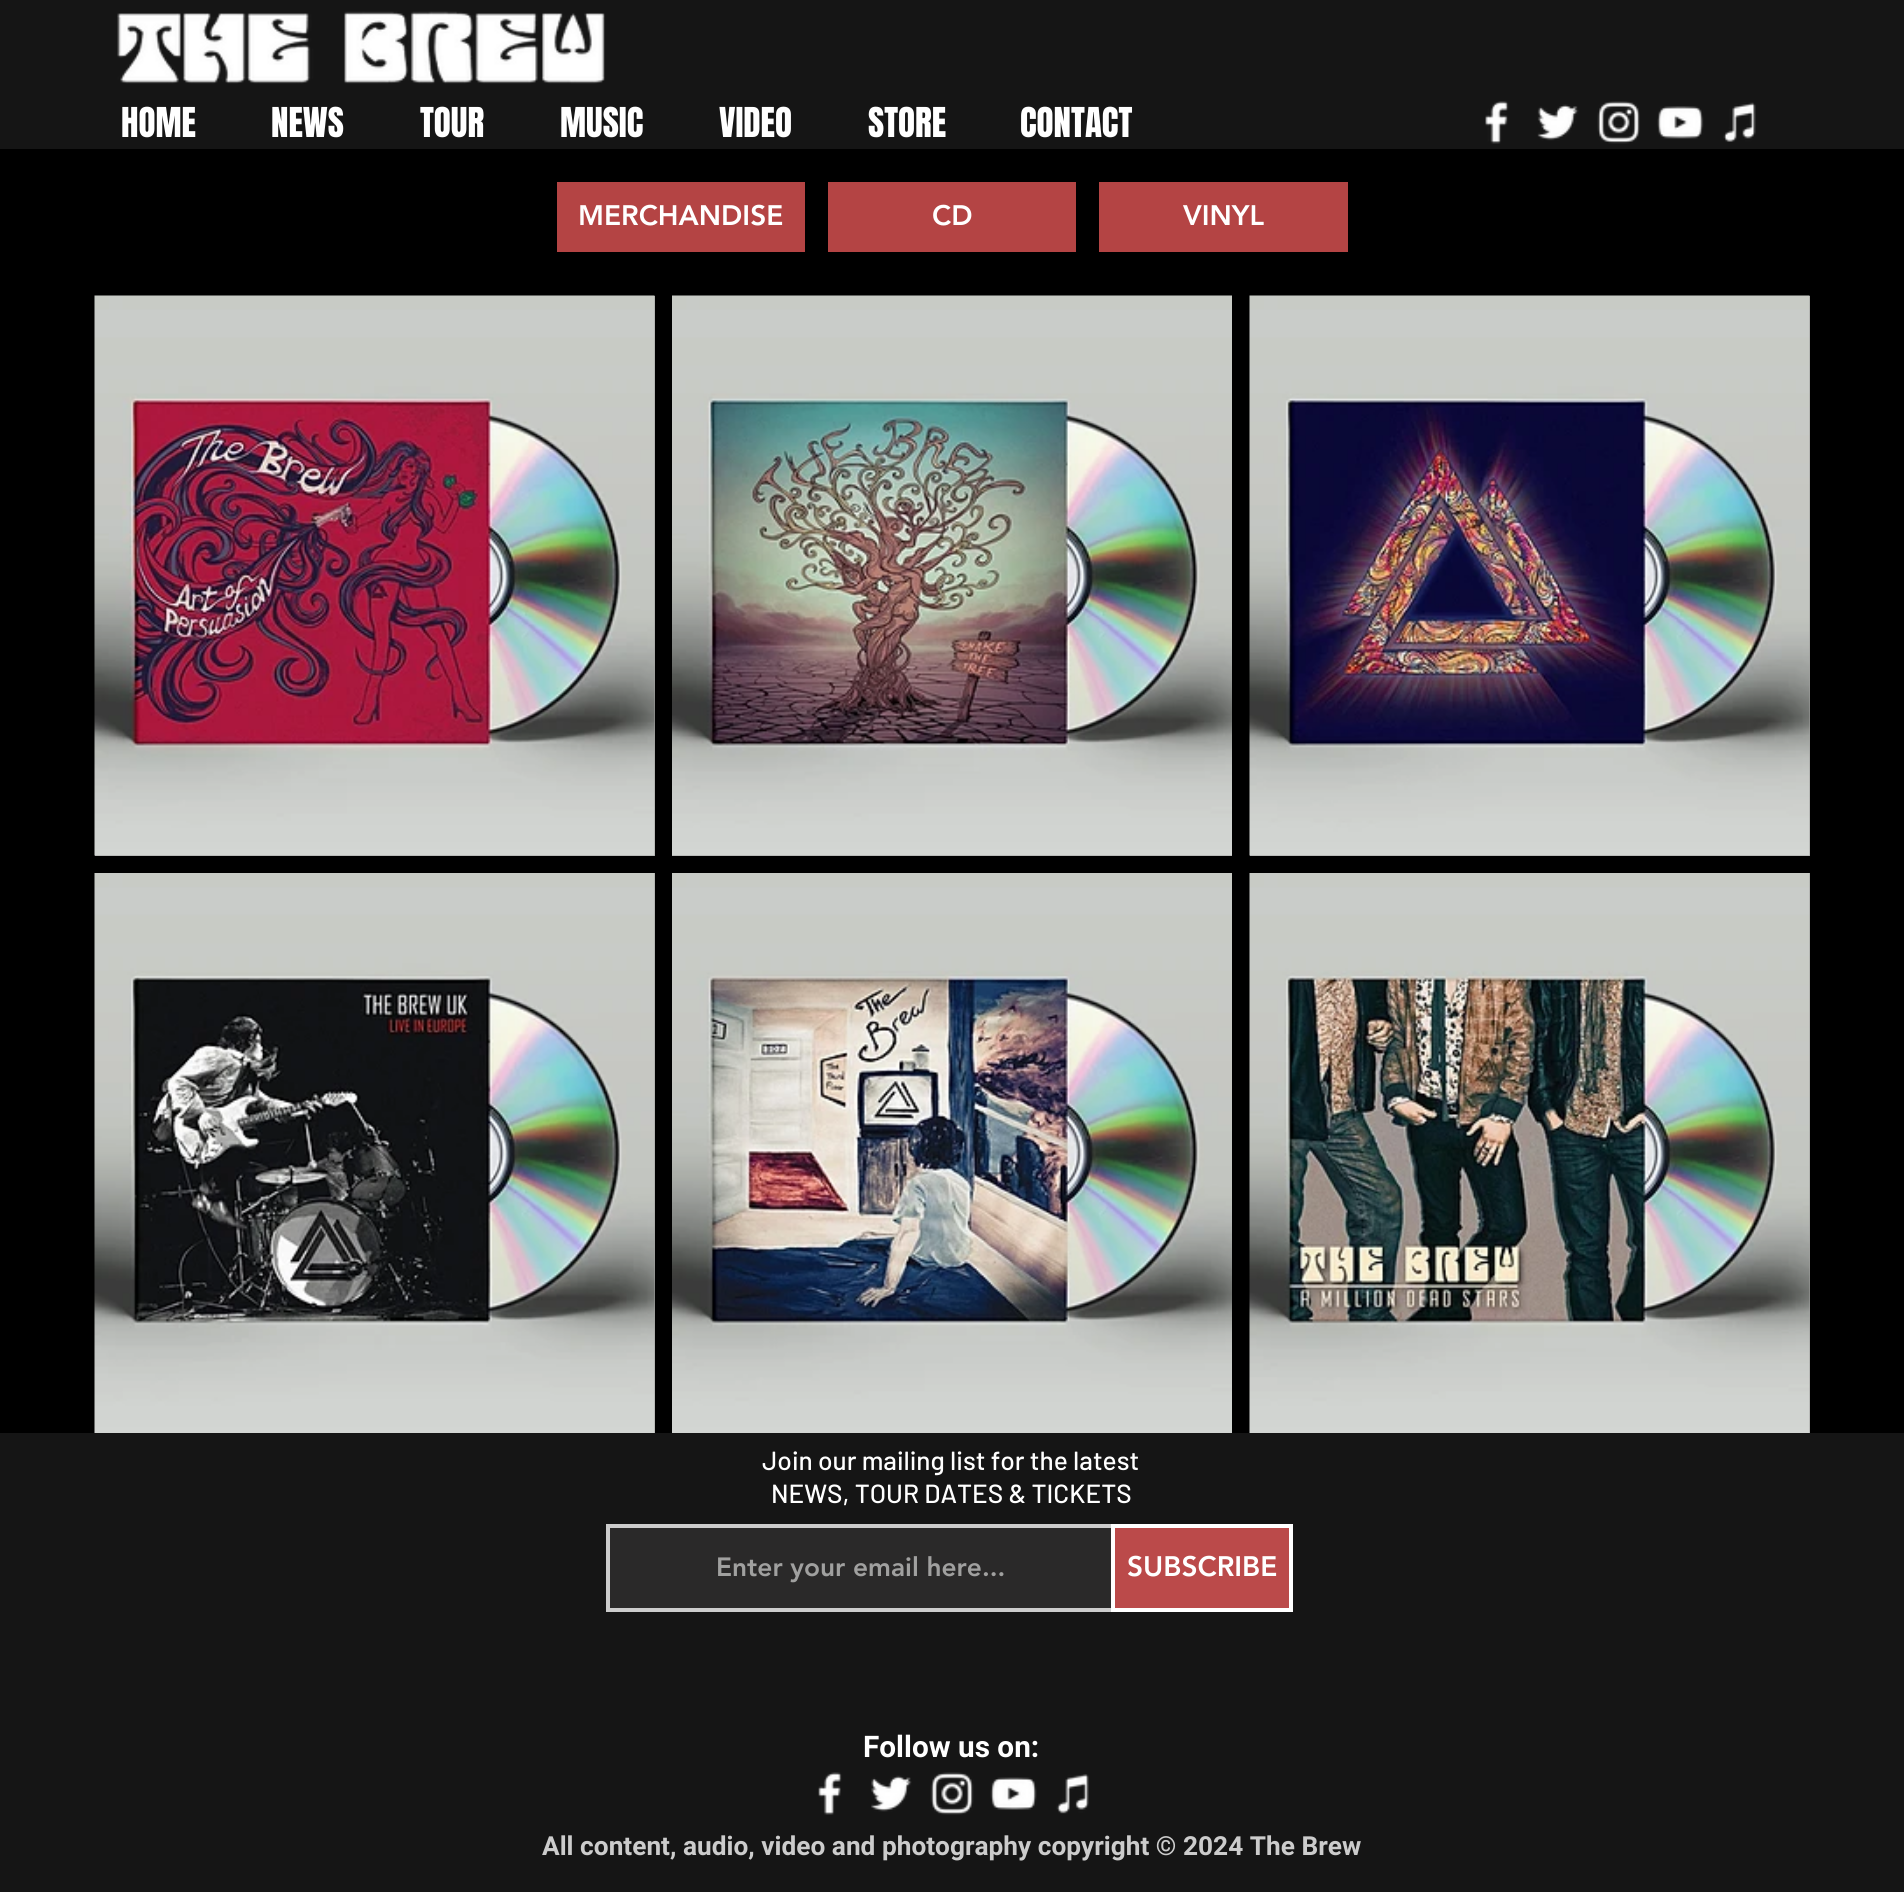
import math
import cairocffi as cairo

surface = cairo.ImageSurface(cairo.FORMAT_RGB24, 1904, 1892)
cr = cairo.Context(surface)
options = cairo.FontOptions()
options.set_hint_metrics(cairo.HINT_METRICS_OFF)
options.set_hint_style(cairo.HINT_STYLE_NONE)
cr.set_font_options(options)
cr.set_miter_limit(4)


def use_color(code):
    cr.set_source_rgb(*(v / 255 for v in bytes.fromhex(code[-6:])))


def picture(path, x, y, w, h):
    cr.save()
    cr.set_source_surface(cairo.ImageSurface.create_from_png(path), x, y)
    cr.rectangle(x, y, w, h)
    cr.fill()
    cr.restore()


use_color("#000000")
cr.paint()
use_color("#151515")
cr.rectangle(0, 0, 1904, 149)
cr.fill()
picture("img1.png", 117, 11, 488, 73)
cr.select_font_face("Anton")
cr.set_font_size(35)
use_color("#ffffff")
cr.move_to(121, 137)
cr.show_text("HOME")
cr.move_to(271, 137)
cr.show_text("NEWS")
cr.move_to(420, 137)
cr.show_text("TOUR")
cr.move_to(560, 137)
cr.show_text("MUSIC")
cr.move_to(719, 137)
cr.show_text("VIDEO")
cr.move_to(868, 137)
cr.show_text("STORE")
cr.move_to(1020, 137)
cr.show_text("CONTACT")
picture("img2.png", 1485, 101, 24, 43)
picture("img3.png", 1537, 104, 42, 37)
picture("img4.png", 1597, 101, 43, 43)
picture("img5.png", 1657, 106, 47, 33)
picture("img6.png", 1723, 102, 33, 40)
use_color("#b44444")
cr.rectangle(557, 182, 248, 70)
cr.fill()
cr.select_font_face("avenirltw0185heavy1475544 Black")
cr.set_font_size(28)
use_color("#ffffff")
cr.move_to(578, 225)
cr.show_text("MERCHANDISE")
use_color("#b44444")
cr.rectangle(828, 182, 248, 70)
cr.fill()
use_color("#ffffff")
cr.move_to(932, 225)
cr.show_text("CD")
use_color("#b44444")
cr.rectangle(1099, 182, 249, 70)
cr.fill()
use_color("#ffffff")
cr.move_to(1183, 225)
cr.show_text("VINYL")
use_color("#a0a09f")
cr.rectangle(95, 296, 560, 560)
cr.fill()
picture("img7.png", 94, 295, 561, 561)
cr.rectangle(672, 855, 560, 1)
cr.fill()
picture("img8.png", 672, 295, 560, 561)
cr.rectangle(1250, 296, 560, 560)
cr.fill()
picture("img9.png", 1249, 295, 561, 561)
cr.rectangle(654, 873, 1, 560)
cr.fill()
picture("img10.png", 94, 873, 561, 560)
picture("img11.png", 672, 873, 560, 560)
cr.rectangle(1809, 873, 1, 560)
cr.fill()
picture("img12.png", 1249, 873, 561, 560)
use_color("#151515")
cr.rectangle(0, 1433, 1904, 459)
cr.fill()
cr.select_font_face("Barlow Medium")
cr.set_font_size(26.25)
use_color("#ffffff")
cr.move_to(762, 1470)
cr.show_text("Join our mailing list for the latest")
cr.move_to(771, 1503)
cr.show_text("NEWS, TOUR DATES & TICKETS")
use_color("#2a2929")
cr.rectangle(608, 1526, 505, 84)
cr.fill_preserve()
use_color("#cccccc")
cr.set_line_width(4)
cr.stroke()
cr.select_font_face("avenirltw0185heavy1475544 Black")
use_color("#a0a09f")
cr.move_to(716, 1576)
cr.show_text("Enter your email here...")
cr.set_source_rgba(0.996, 0.376, 0.376, 0.71)
cr.rectangle(1113, 1526, 178, 84)
cr.fill_preserve()
use_color("#ffffff")
cr.stroke()
cr.set_font_size(28)
cr.move_to(1127, 1576)
cr.show_text("SUBSCRIBE")
cr.select_font_face("Roboto", cairo.FONT_SLANT_NORMAL, cairo.FONT_WEIGHT_BOLD)
cr.set_font_size(29.75)
cr.move_to(863, 1757)
cr.show_text("Follow us on:")
picture("img13.png", 818, 1772, 24, 43)
picture("img14.png", 871, 1775, 41, 37)
picture("img15.png", 930, 1772, 44, 43)
picture("img16.png", 990, 1777, 47, 33)
picture("img17.png", 1056, 1774, 33, 40)
cr.set_font_size(26.25)
use_color("#cccccc")
cr.move_to(542, 1855)
cr.show_text("All content, audio, video and photography copyright © 2024 The Brew")
surface.write_to_png("result.png")
